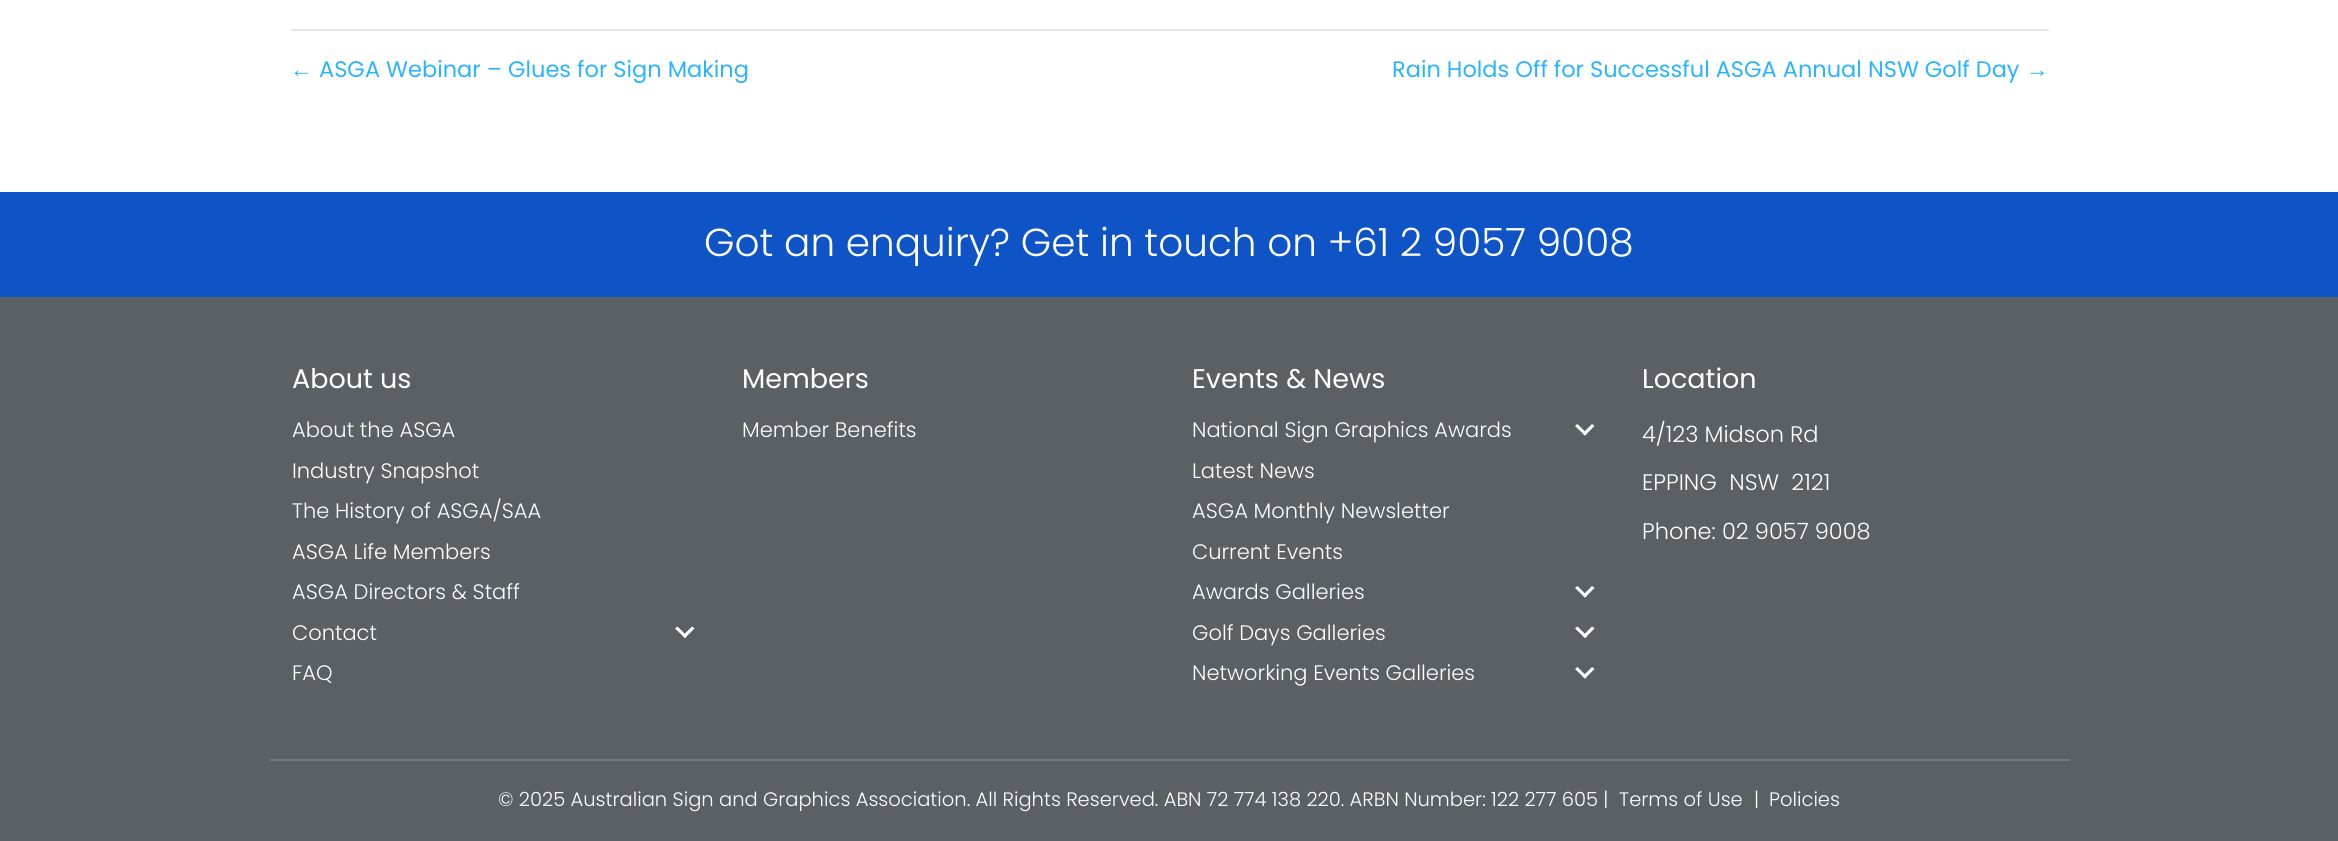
import math
import cairocffi as cairo

surface = cairo.ImageSurface(cairo.FORMAT_RGB24, 2338, 841)
cr = cairo.Context(surface)
options = cairo.FontOptions()
options.set_hint_metrics(cairo.HINT_METRICS_OFF)
options.set_hint_style(cairo.HINT_STYLE_NONE)
cr.set_font_options(options)
cr.set_miter_limit(4)


def use_color(code):
    cr.set_source_rgb(*(v / 255 for v in bytes.fromhex(code[-6:])))


use_color("#ffffff")
cr.paint()
use_color("#e8e8e8")
cr.rectangle(291, 29, 1758, 2)
cr.fill()
cr.select_font_face("Liberation Sans")
cr.set_font_size(22.5)
use_color("#2ab4fd")
cr.move_to(290, 77)
cr.show_text("←")
cr.select_font_face("Poppins")
cr.move_to(319, 77)
cr.show_text("ASGA Webinar – Glues for Sign Making")
cr.move_to(1392, 77)
cr.show_text("Rain Holds Off for Successful ASGA Annual NSW Golf Day")
cr.select_font_face("Liberation Sans")
cr.move_to(2026, 77)
cr.show_text("→")
use_color("#0f54c6")
cr.rectangle(0, 192, 2338, 105)
cr.fill()
cr.select_font_face("Poppins Light")
cr.set_font_size(39)
use_color("#ffffff")
cr.move_to(704, 256)
cr.show_text("Got an enquiry? Get in touch on +61 2 9057 9008")
use_color("#5b6065")
cr.rectangle(0, 297, 2338, 544)
cr.fill()
cr.select_font_face("Poppins")
cr.set_font_size(27)
use_color("#ffffff")
cr.move_to(292, 388)
cr.show_text("About us")
cr.select_font_face("Poppins Light")
cr.set_font_size(21)
cr.move_to(292, 437)
cr.show_text("About the ASGA")
cr.move_to(292, 478)
cr.show_text("Industry Snapshot")
cr.move_to(292, 518)
cr.show_text("The History of ASGA/SAA")
cr.move_to(292, 559)
cr.show_text("ASGA Life Members")
cr.move_to(292, 599)
cr.show_text("ASGA Directors & Staff")
cr.move_to(292, 640)
cr.show_text("Contact")
cr.new_path()
cr.move_to(692, 626.5)
cr.line_to(694.5, 628.5)
cr.line_to(685, 638)
cr.line_to(682.5, 636)
cr.close_path()
cr.fill()
cr.new_path()
cr.move_to(677.5, 626.5)
cr.line_to(687, 636)
cr.line_to(685, 638)
cr.line_to(675, 628.5)
cr.close_path()
cr.fill()
cr.move_to(292, 680)
cr.show_text("FAQ")
cr.select_font_face("Poppins")
cr.set_font_size(27)
cr.move_to(742, 388)
cr.show_text("Members")
cr.select_font_face("Poppins Light")
cr.set_font_size(21)
cr.move_to(742, 437)
cr.show_text("Member Benefits")
cr.select_font_face("Poppins")
cr.set_font_size(27)
cr.move_to(1192, 388)
cr.show_text("Events & News")
cr.select_font_face("Poppins Light")
cr.set_font_size(21)
cr.move_to(1192, 437)
cr.show_text("National Sign Graphics Awards")
cr.new_path()
cr.move_to(1592, 424)
cr.line_to(1594.5, 426)
cr.line_to(1585, 435.5)
cr.line_to(1582.5, 433.5)
cr.close_path()
cr.fill()
cr.new_path()
cr.move_to(1577.5, 424)
cr.line_to(1587, 433.5)
cr.line_to(1585, 435.5)
cr.line_to(1575, 426)
cr.close_path()
cr.fill()
cr.move_to(1192, 478)
cr.show_text("Latest News")
cr.move_to(1192, 518)
cr.show_text("ASGA Monthly Newsletter")
cr.move_to(1192, 559)
cr.show_text("Current Events")
cr.move_to(1192, 599)
cr.show_text("Awards Galleries")
cr.new_path()
cr.move_to(1592, 586)
cr.line_to(1594.5, 588)
cr.line_to(1585, 597.5)
cr.line_to(1582.5, 595.5)
cr.close_path()
cr.fill()
cr.new_path()
cr.move_to(1577.5, 586)
cr.line_to(1587, 595.5)
cr.line_to(1585, 597.5)
cr.line_to(1575, 588)
cr.close_path()
cr.move_to(1592, 626.5)
cr.line_to(1594.5, 628.5)
cr.line_to(1585, 638)
cr.line_to(1582.5, 636)
cr.close_path()
cr.fill()
cr.move_to(1192, 640)
cr.show_text("Golf Days Galleries")
cr.new_path()
cr.move_to(1577.5, 626.5)
cr.line_to(1587, 636)
cr.line_to(1585, 638)
cr.line_to(1575, 628.5)
cr.close_path()
cr.move_to(1592, 667)
cr.line_to(1594.5, 669)
cr.line_to(1585, 678.5)
cr.line_to(1582.5, 676.5)
cr.close_path()
cr.fill()
cr.move_to(1192, 680)
cr.show_text("Networking Events Galleries")
cr.new_path()
cr.move_to(1577.5, 667)
cr.line_to(1587, 676.5)
cr.line_to(1585, 678.5)
cr.line_to(1575, 669)
cr.close_path()
cr.fill()
cr.select_font_face("Poppins")
cr.set_font_size(27)
cr.move_to(1642, 388)
cr.show_text("Location")
cr.select_font_face("Poppins Light")
cr.set_font_size(22.5)
cr.move_to(1642, 442)
cr.show_text("4/123 Midson Rd")
cr.move_to(1642, 490)
cr.show_text("EPPING  NSW  2121")
cr.move_to(1642, 539)
cr.show_text("Phone: 02 9057 9008")
use_color("#74787c")
cr.rectangle(270, 759, 1800, 2)
cr.fill()
cr.set_font_size(19.5)
use_color("#ffffff")
cr.move_to(498, 806)
cr.show_text("© 2025 Australian Sign and Graphics Association. All Rights Reserved. ABN 72 774 138 220. ARBN Number: 122 277 605 |")
cr.move_to(1619, 806)
cr.show_text("Terms of Use")
cr.move_to(1754, 806)
cr.show_text("|")
cr.move_to(1769, 806)
cr.show_text("Policies")
surface.write_to_png("result.png")
